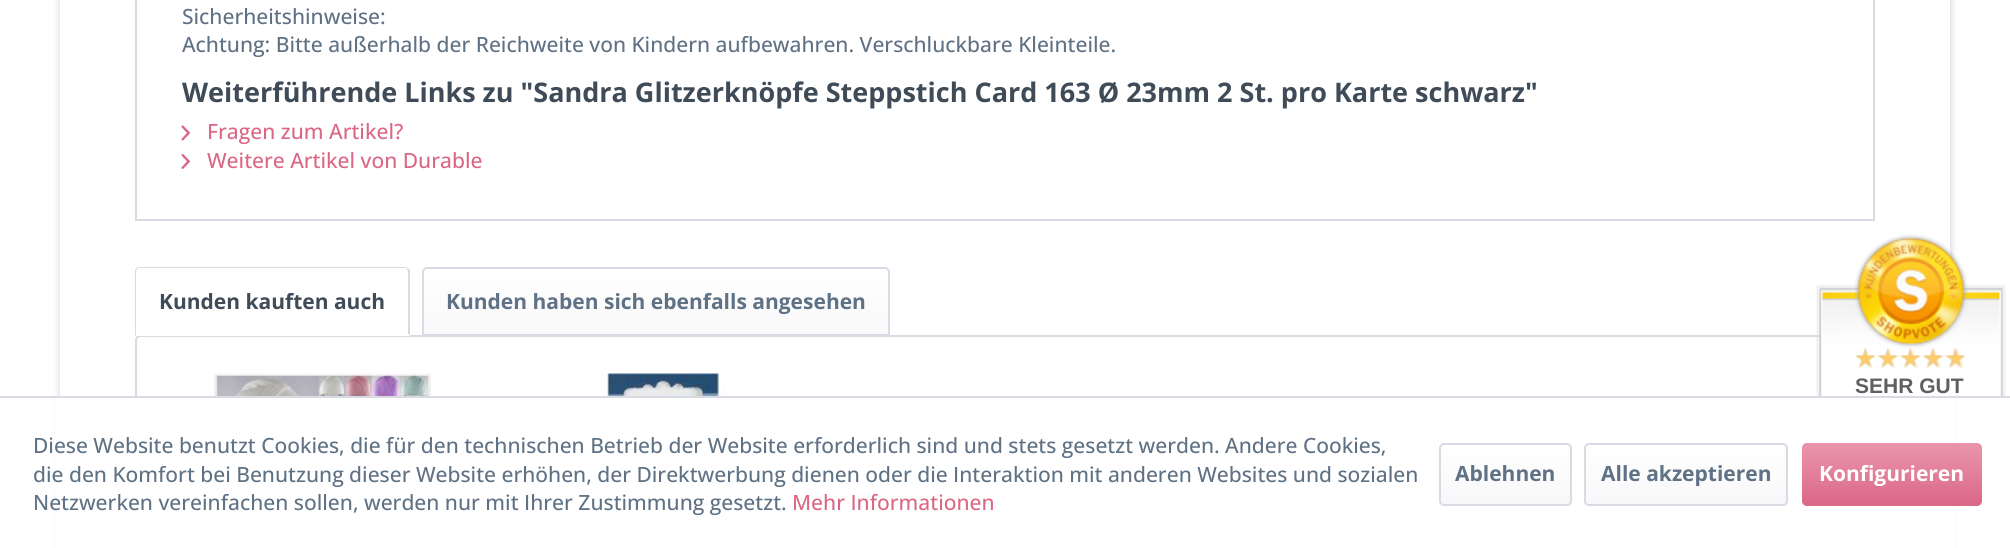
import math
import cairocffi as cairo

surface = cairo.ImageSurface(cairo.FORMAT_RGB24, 2010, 548)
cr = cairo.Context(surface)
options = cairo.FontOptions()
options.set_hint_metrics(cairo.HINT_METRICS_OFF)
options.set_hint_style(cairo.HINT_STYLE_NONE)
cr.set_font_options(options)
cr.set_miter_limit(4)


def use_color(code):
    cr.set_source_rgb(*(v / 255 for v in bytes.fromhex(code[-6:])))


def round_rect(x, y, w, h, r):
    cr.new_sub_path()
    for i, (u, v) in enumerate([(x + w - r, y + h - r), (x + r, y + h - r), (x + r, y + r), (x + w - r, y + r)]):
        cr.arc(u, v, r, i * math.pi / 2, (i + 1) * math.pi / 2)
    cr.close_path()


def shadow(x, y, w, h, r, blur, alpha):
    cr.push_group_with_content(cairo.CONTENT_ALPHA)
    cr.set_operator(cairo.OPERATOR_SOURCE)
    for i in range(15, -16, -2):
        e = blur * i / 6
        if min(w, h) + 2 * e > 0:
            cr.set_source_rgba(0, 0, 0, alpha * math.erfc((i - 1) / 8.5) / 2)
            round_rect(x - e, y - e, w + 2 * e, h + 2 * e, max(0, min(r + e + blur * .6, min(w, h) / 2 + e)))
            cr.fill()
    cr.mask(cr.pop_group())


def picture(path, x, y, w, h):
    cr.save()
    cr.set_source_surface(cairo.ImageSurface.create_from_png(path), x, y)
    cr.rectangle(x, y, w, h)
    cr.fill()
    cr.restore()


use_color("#ffffff")
cr.paint()
cr.save()
cr.set_fill_rule(cairo.FILL_RULE_EVEN_ODD)
cr.new_path()
cr.move_to(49, 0)
cr.line_to(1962, 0)
cr.line_to(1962, 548)
cr.line_to(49, 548)
cr.close_path()
cr.move_to(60, -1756)
cr.line_to(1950, -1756)
cr.line_to(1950, 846)
cr.line_to(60, 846)
cr.close_path()
cr.clip()
use_color("#dadae5")
shadow(59, -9, 1893, 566, 0, 3, 1)
cr.restore()
cr.rectangle(136, -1, 1738, 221)
use_color("#dadae5")
cr.stroke()
cr.select_font_face("Open Sans Medium")
cr.set_font_size(21)
use_color("#5f7285")
cr.move_to(182, 24)
cr.show_text("Sicherheitshinweise:")
cr.move_to(182, 52)
cr.show_text("Achtung: Bitte außerhalb der Reichweite von Kindern aufbewahren. Verschluckbare Kleinteile.")
cr.select_font_face("Open Sans", cairo.FONT_SLANT_NORMAL, cairo.FONT_WEIGHT_BOLD)
cr.set_font_size(27)
use_color("#3f4c58")
cr.move_to(182, 102)
cr.show_text("Weiterführende Links zu \"Sandra Glitzerknöpfe Steppstich Card 163 Ø 23mm 2 St. pro Karte schwarz\"")
picture("img1.png", 181, 125, 9, 16)
cr.select_font_face("Open Sans Medium")
cr.set_font_size(21)
use_color("#db6786")
cr.move_to(207, 139)
cr.show_text("Fragen zum Artikel?")
picture("img2.png", 181, 154, 9, 15)
cr.move_to(207, 168)
cr.show_text("Weitere Artikel von Durable")
round_rect(136, 336, 1738, 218, 4)
use_color("#dadae5")
cr.stroke()
use_color("#ffffff")
cr.new_path()
cr.move_to(140, 267)
cr.line_to(405, 267)
cr.curve_to(408, 267, 410, 269, 410, 272)
cr.line_to(410, 336)
cr.line_to(135, 336)
cr.line_to(135, 272)
cr.curve_to(135, 269, 137, 267, 140, 267)
cr.close_path()
cr.fill()
use_color("#dadae5")
cr.new_path()
cr.move_to(140, 267)
cr.curve_to(138, 267, 137, 268, 136, 268)
cr.line_to(137, 269)
cr.curve_to(138, 268, 139, 268, 140, 268)
cr.line_to(405, 268)
cr.curve_to(406, 268, 407, 268, 407, 269)
cr.line_to(408, 268)
cr.line_to(405, 267)
cr.close_path()
cr.fill()
cr.new_path()
cr.move_to(410, 270)
cr.line_to(410, 336)
cr.line_to(408, 334)
cr.line_to(408, 272)
cr.line_to(407, 269)
cr.line_to(408, 268)
cr.close_path()
cr.fill()
use_color("#ffffff")
cr.new_path()
cr.move_to(410, 336)
cr.line_to(408, 334)
cr.line_to(137, 334)
cr.line_to(135, 336)
cr.close_path()
cr.fill()
use_color("#dadae5")
cr.new_path()
cr.move_to(135, 336)
cr.line_to(137, 334)
cr.line_to(136, 334)
cr.line_to(136, 272)
cr.line_to(137, 269)
cr.line_to(136, 268)
cr.curve_to(136, 269, 135, 270, 135, 272)
cr.close_path()
cr.fill()
cr.select_font_face("Open Sans", cairo.FONT_SLANT_NORMAL, cairo.FONT_WEIGHT_BOLD)
use_color("#3f4c58")
cr.move_to(159, 309)
cr.show_text("Kunden kauften auch")
gradient = cairo.LinearGradient(656, 268, 656, 335)
gradient.add_color_stop_rgba(0, 1, 1, 1, 1)
gradient.add_color_stop_rgba(1, 0.973, 0.973, 0.98, 1)
cr.set_source(gradient)
cr.new_path()
cr.move_to(426, 269)
cr.line_to(885, 269)
cr.curve_to(886.5, 269, 888, 270.5, 888, 272)
cr.line_to(888, 335)
cr.line_to(423, 335)
cr.line_to(423, 272)
cr.curve_to(423, 270.5, 424.5, 269, 426, 269)
cr.close_path()
cr.fill()
cr.new_path()
cr.move_to(427, 268)
cr.line_to(885, 268)
cr.curve_to(887, 268, 889, 270, 889, 272)
cr.line_to(889, 335)
cr.line_to(423, 335)
cr.line_to(423, 272)
cr.curve_to(423, 270, 425, 268, 427, 268)
cr.close_path()
use_color("#dadae5")
cr.stroke()
use_color("#5f7285")
cr.move_to(446, 309)
cr.show_text("Kunden haben sich ebenfalls angesehen")
picture("img3.png", 214, 373, 217, 23)
picture("img4.png", 602, 373, 124, 23)
picture("img5.png", 1816, 234, 190, 162)
picture("img6.png", 1855, 348, 109, 20)
cr.select_font_face("Liberation Sans", cairo.FONT_SLANT_NORMAL, cairo.FONT_WEIGHT_BOLD)
use_color("#606060")
cr.move_to(1855, 393)
cr.show_text("SEHR GUT")
use_color("#ffffff")
cr.rectangle(55, 398, 1901, 150)
cr.fill()
use_color("#dadae5")
cr.rectangle(0, 396, 2010, 2)
cr.fill()
cr.select_font_face("Open Sans Medium")
use_color("#5f7285")
cr.move_to(33, 453)
cr.show_text("Diese Website benutzt Cookies, die für den technischen Betrieb der Website erforderlich sind und stets gesetzt werden. Andere Cookies,")
cr.move_to(33, 482)
cr.show_text("die den Komfort bei Benutzung dieser Website erhöhen, der Direktwerbung dienen oder die Interaktion mit anderen Websites und sozialen")
cr.move_to(33, 510)
cr.show_text("Netzwerken vereinfachen sollen, werden nur mit Ihrer Zustimmung gesetzt.")
use_color("#db6786")
cr.move_to(792, 510)
cr.show_text("Mehr Informationen")
gradient = cairo.LinearGradient(1505, 444, 1505, 504)
gradient.add_color_stop_rgba(0, 1, 1, 1, 1)
gradient.add_color_stop_rgba(1, 0.973, 0.973, 0.98, 1)
cr.set_source(gradient)
round_rect(1440, 444, 131, 60, 3)
cr.fill()
round_rect(1440, 444, 131, 61, 4)
use_color("#dadae5")
cr.stroke()
cr.select_font_face("Open Sans", cairo.FONT_SLANT_NORMAL, cairo.FONT_WEIGHT_BOLD)
use_color("#5f7285")
cr.move_to(1455, 481)
cr.show_text("Ablehnen")
gradient = cairo.LinearGradient(1686, 444, 1686, 504)
gradient.add_color_stop_rgba(0, 1, 1, 1, 1)
gradient.add_color_stop_rgba(1, 0.973, 0.973, 0.98, 1)
cr.set_source(gradient)
round_rect(1586, 444, 201, 60, 3)
cr.fill()
round_rect(1585, 444, 202, 61, 4)
use_color("#dadae5")
cr.stroke()
use_color("#5f7285")
cr.move_to(1601, 481)
cr.show_text("Alle akzeptieren")
gradient = cairo.LinearGradient(1892, 443, 1892, 506)
gradient.add_color_stop_rgba(0, 0.918, 0.584, 0.675, 1)
gradient.add_color_stop_rgba(1, 0.859, 0.404, 0.525, 1)
cr.set_source(gradient)
round_rect(1802, 443, 180, 63, 5)
cr.fill()
use_color("#ffffff")
cr.move_to(1819, 481)
cr.show_text("Konfigurieren")
surface.write_to_png("result.png")
